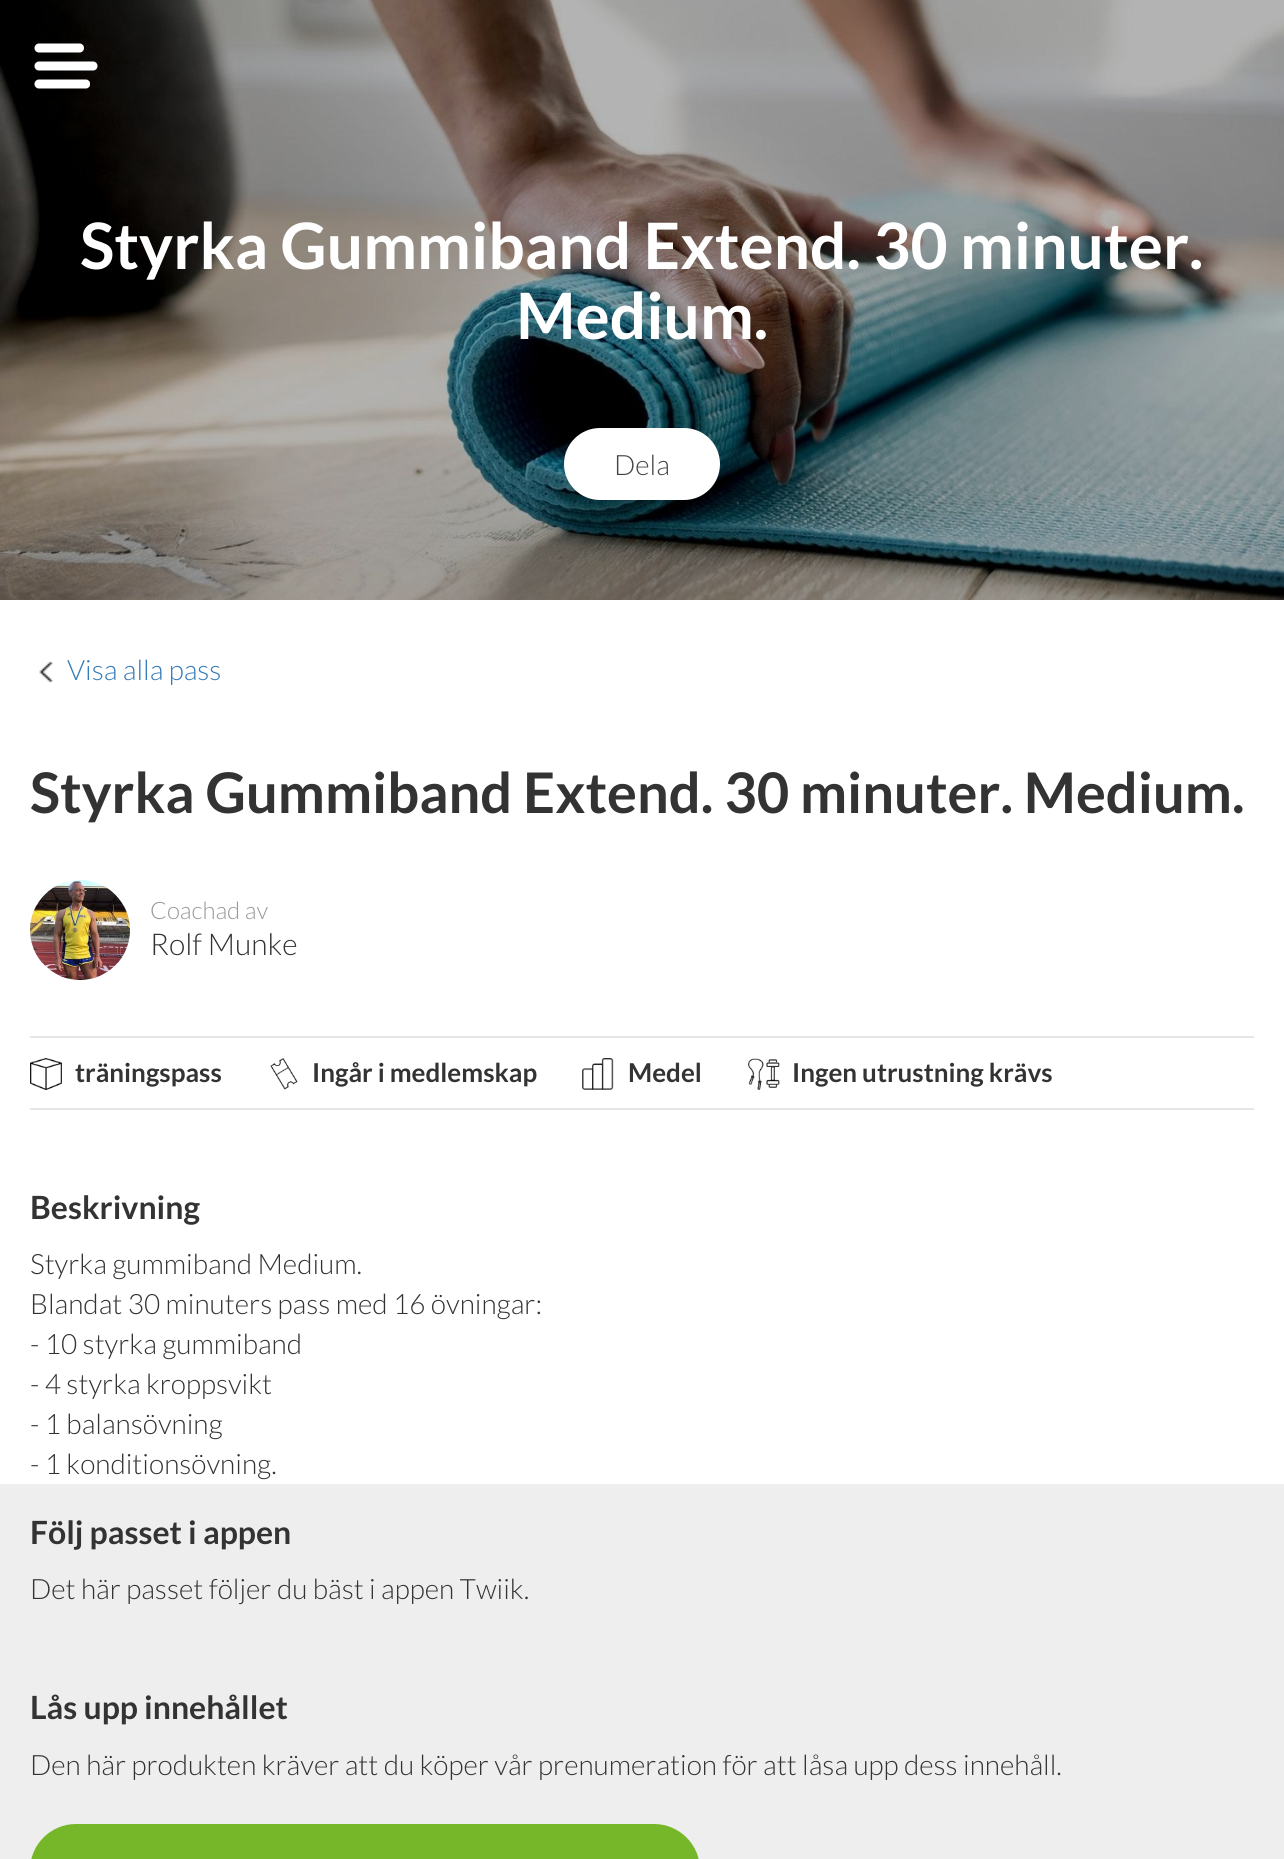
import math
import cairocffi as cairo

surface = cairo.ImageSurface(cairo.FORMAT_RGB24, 1284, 1859)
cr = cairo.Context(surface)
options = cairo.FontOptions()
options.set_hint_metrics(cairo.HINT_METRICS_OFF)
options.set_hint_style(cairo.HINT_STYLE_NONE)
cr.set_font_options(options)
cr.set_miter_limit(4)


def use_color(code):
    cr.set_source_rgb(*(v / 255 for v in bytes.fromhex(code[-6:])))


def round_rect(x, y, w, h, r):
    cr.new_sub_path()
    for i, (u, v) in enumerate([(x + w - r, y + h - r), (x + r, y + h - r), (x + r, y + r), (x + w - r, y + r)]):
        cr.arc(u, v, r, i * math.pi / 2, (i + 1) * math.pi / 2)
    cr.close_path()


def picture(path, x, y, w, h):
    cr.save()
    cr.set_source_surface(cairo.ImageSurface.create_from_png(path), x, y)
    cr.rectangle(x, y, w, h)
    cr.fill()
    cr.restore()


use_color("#ffffff")
cr.paint()
picture("img2.png", 0, 0, 1284, 600)
picture("img1.png", 34, 43, 64, 46)
cr.select_font_face("Lato", cairo.FONT_SLANT_NORMAL, cairo.FONT_WEIGHT_BOLD)
cr.set_font_size(64)
use_color("#ffffff")
cr.move_to(80, 269)
cr.show_text("Styrka Gummiband Extend. 30 minuter.")
cr.move_to(516, 339)
cr.show_text("Medium.")
round_rect(564, 428, 156, 72, 36)
cr.fill()
cr.select_font_face("Lato Light")
cr.set_font_size(28)
use_color("#444444")
cr.move_to(614, 475)
cr.show_text("Dela")
picture("img3.png", 39, 661, 14, 22)
use_color("#337ab7")
cr.move_to(67, 680)
cr.show_text("Visa alla pass")
cr.select_font_face("Lato", cairo.FONT_SLANT_NORMAL, cairo.FONT_WEIGHT_BOLD)
cr.set_font_size(56)
use_color("#333333")
cr.move_to(30, 813)
cr.show_text("Styrka Gummiband Extend. 30 minuter. Medium.")
picture("img4.png", 30, 880, 100, 100)
cr.select_font_face("Lato Light")
cr.set_font_size(24)
use_color("#999999")
cr.move_to(150, 919)
cr.show_text("Coachad av")
cr.set_font_size(30)
use_color("#333333")
cr.move_to(150, 955)
cr.show_text("Rolf Munke")
use_color("#e6e6e6")
cr.rectangle(30, 1036, 1224, 2)
cr.fill()
cr.rectangle(30, 1108, 1224, 2)
cr.fill()
picture("img5.png", 30, 1058, 32, 32)
cr.select_font_face("Lato", cairo.FONT_SLANT_NORMAL, cairo.FONT_WEIGHT_BOLD)
cr.set_font_size(26)
use_color("#333333")
cr.move_to(75, 1082)
cr.show_text("träningspass")
picture("img6.png", 270, 1058, 28, 32)
cr.move_to(312, 1082)
cr.show_text("Ingår i medlemskap")
picture("img7.png", 582, 1058, 32, 32)
cr.move_to(628, 1082)
cr.show_text("Medel")
picture("img8.png", 748, 1058, 32, 32)
cr.move_to(792, 1082)
cr.show_text("Ingen utrustning krävs")
cr.set_font_size(32)
cr.move_to(30, 1219)
cr.show_text("Beskrivning")
cr.select_font_face("Lato Light")
cr.set_font_size(28)
cr.move_to(30, 1274)
cr.show_text("Styrka gummiband Medium.")
cr.move_to(30, 1314)
cr.show_text("Blandat 30 minuters pass med 16 övningar:")
cr.move_to(30, 1354)
cr.show_text("- 10 styrka gummiband")
cr.move_to(30, 1394)
cr.show_text("- 4 styrka kroppsvikt")
cr.move_to(30, 1434)
cr.show_text("- 1 balansövning")
cr.move_to(30, 1474)
cr.show_text("- 1 konditionsövning.")
use_color("#eeeeee")
cr.rectangle(0, 1484, 1284, 375)
cr.fill()
cr.select_font_face("Lato", cairo.FONT_SLANT_NORMAL, cairo.FONT_WEIGHT_BOLD)
cr.set_font_size(32)
use_color("#333333")
cr.move_to(30, 1544)
cr.show_text("Följ passet i appen")
cr.select_font_face("Lato Light")
cr.set_font_size(28)
cr.move_to(30, 1599)
cr.show_text("Det här passet följer du bäst i appen Twiik.")
cr.select_font_face("Lato", cairo.FONT_SLANT_NORMAL, cairo.FONT_WEIGHT_BOLD)
cr.set_font_size(32)
cr.move_to(30, 1719)
cr.show_text("Lås upp innehållet")
cr.select_font_face("Lato Light")
cr.set_font_size(28)
cr.move_to(30, 1775)
cr.show_text("Den här produkten kräver att du köper vår prenumeration för att låsa upp dess innehåll.")
use_color("#76b72a")
round_rect(30, 1824, 670, 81, 46)
cr.fill()
surface.write_to_png("result.png")
